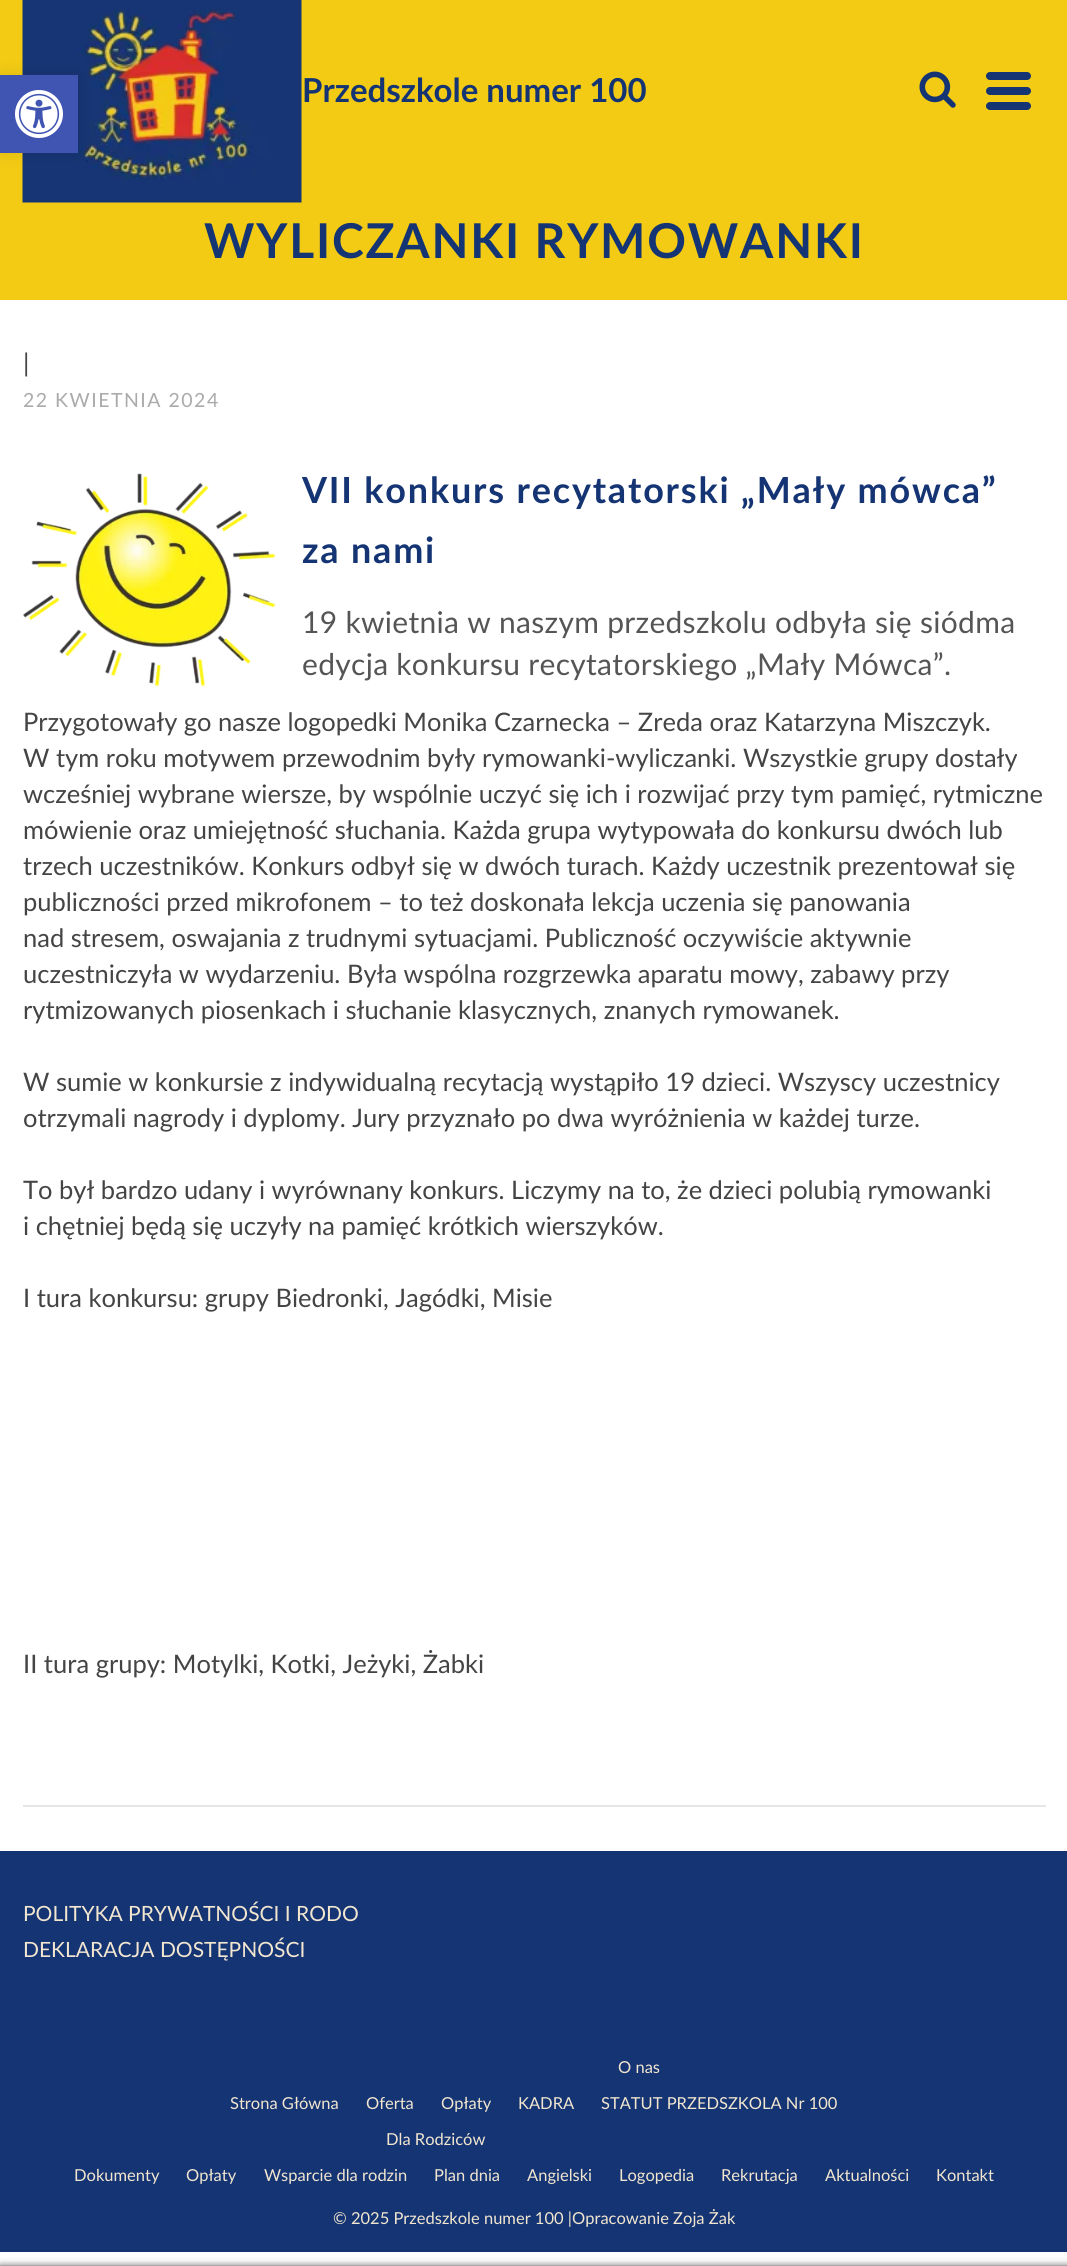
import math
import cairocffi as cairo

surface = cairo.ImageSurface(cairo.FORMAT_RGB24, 1067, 2266)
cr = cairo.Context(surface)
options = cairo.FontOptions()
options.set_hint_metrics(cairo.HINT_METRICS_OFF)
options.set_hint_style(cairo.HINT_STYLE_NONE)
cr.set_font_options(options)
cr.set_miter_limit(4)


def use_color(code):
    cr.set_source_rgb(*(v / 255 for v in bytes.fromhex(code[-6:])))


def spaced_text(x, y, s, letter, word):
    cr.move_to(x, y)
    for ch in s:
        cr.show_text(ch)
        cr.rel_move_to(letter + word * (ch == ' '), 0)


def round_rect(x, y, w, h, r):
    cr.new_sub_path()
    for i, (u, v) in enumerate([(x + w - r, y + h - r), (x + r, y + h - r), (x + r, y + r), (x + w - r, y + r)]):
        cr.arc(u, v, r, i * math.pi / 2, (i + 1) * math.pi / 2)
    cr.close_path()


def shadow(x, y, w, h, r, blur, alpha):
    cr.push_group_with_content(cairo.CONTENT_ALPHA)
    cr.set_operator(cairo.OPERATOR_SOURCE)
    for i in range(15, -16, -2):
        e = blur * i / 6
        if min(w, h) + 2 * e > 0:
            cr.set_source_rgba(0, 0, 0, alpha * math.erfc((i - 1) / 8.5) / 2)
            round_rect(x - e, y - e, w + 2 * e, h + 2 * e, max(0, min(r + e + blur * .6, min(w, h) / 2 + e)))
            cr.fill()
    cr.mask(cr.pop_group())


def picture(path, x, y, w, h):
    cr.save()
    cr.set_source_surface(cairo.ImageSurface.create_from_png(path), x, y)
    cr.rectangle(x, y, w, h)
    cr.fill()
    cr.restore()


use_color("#ffffff")
cr.paint()
use_color("#f3cb14")
cr.rectangle(0, 0, 1067, 300)
cr.fill()
picture("img2.png", 22, 0, 280, 203)
use_color("#000000")
shadow(0, 75, 78, 78, 0, 7.5, 0.1)
use_color("#4054b2")
cr.rectangle(0, 75, 78, 78)
cr.fill()
picture("img1.png", 15, 90, 48, 48)
cr.select_font_face("Lato", cairo.FONT_SLANT_NORMAL, cairo.FONT_WEIGHT_BOLD)
cr.set_font_size(33)
use_color("#143473")
cr.move_to(302, 102)
cr.show_text("Przedszkole numer 100")
picture("img3.png", 919, 71, 37, 37)
round_rect(986, 72, 45, 8, 4)
cr.fill()
round_rect(986, 87, 45, 8, 4)
cr.fill()
round_rect(986, 102, 45, 8, 4)
cr.fill()
cr.set_font_size(48)
spaced_text(204, 258, "WYLICZANKI RYMOWANKI", 1.8, 0)
cr.select_font_face("Lato")
cr.set_font_size(25.5)
use_color("#444444")
cr.move_to(23, 372)
cr.show_text("|")
cr.set_font_size(19.5)
use_color("#aaaaaa")
spaced_text(23, 407, "22 KWIETNIA 2024", 1.5, 0)
picture("img4.png", 23, 473, 253, 214)
cr.select_font_face("Lato", cairo.FONT_SLANT_NORMAL, cairo.FONT_WEIGHT_BOLD)
cr.set_font_size(36)
use_color("#143473")
spaced_text(302, 503, "VII konkurs recytatorski „Mały mówca”", 1.8, 0)
spaced_text(302, 563, "za nami", 1.8, 0)
cr.select_font_face("Lato")
cr.set_font_size(30)
use_color("#555555")
spaced_text(302, 633, "19 kwietnia w naszym przedszkolu odbyła się siódma", 0.3, 0)
spaced_text(302, 675, "edycja konkursu recytatorskiego „Mały Mówca”.", 0.3, 0)
cr.set_font_size(25.5)
use_color("#444444")
cr.move_to(23, 731)
cr.show_text("Przygotowały go nasze logopedki Monika Czarnecka – Zreda oraz Katarzyna Miszczyk.")
cr.move_to(23, 767)
cr.show_text("W tym roku motywem przewodnim były rymowanki-wyliczanki. Wszystkie grupy dostały")
cr.move_to(23, 803)
cr.show_text("wcześniej wybrane wiersze, by wspólnie uczyć się ich i rozwijać przy tym pamięć, rytmiczne")
cr.move_to(23, 839)
cr.show_text("mówienie oraz umiejętność słuchania. Każda grupa wytypowała do konkursu dwóch lub")
cr.move_to(23, 875)
cr.show_text("trzech uczestników. Konkurs odbył się w dwóch turach. Każdy uczestnik prezentował się")
cr.move_to(23, 911)
cr.show_text("publiczności przed mikrofonem – to też doskonała lekcja uczenia się panowania")
cr.move_to(23, 947)
cr.show_text("nad stresem, oswajania z trudnymi sytuacjami. Publiczność oczywiście aktywnie")
cr.move_to(23, 983)
cr.show_text("uczestniczyła w wydarzeniu. Była wspólna rozgrzewka aparatu mowy, zabawy przy")
cr.move_to(23, 1019)
cr.show_text("rytmizowanych piosenkach i słuchanie klasycznych, znanych rymowanek.")
cr.move_to(23, 1091)
cr.show_text("W sumie w konkursie z indywidualną recytacją wystąpiło 19 dzieci. Wszyscy uczestnicy")
cr.move_to(23, 1127)
cr.show_text("otrzymali nagrody i dyplomy. Jury przyznało po dwa wyróżnienia w każdej turze.")
cr.move_to(23, 1199)
cr.show_text("To był bardzo udany i wyrównany konkurs. Liczymy na to, że dzieci polubią rymowanki")
cr.move_to(23, 1235)
cr.show_text("i chętniej będą się uczyły na pamięć krótkich wierszyków.")
cr.move_to(23, 1307)
cr.show_text("I tura konkursu: grupy Biedronki, Jagódki, Misie")
cr.move_to(23, 1673)
cr.show_text("II tura grupy: Motylki, Kotki, Jeżyki, Żabki")
use_color("#e6e6e6")
cr.rectangle(23, 1805, 1023, 2)
cr.fill()
use_color("#143473")
cr.rectangle(0, 1851, 1067, 401)
cr.fill()
cr.set_font_size(21)
use_color("#f2e6d0")
cr.move_to(23, 1921)
cr.show_text("POLITYKA PRYWATNOŚCI I RODO")
cr.move_to(23, 1957)
cr.show_text("DEKLARACJA DOSTĘPNOŚCI")
cr.set_font_size(16.5)
cr.move_to(230, 2109)
cr.show_text("Strona Główna")
cr.move_to(366, 2109)
cr.show_text("Oferta")
cr.move_to(618, 2073)
cr.show_text("O nas")
cr.move_to(441, 2109)
cr.show_text("Opłaty")
cr.move_to(518, 2109)
cr.show_text("KADRA")
cr.move_to(601, 2109)
cr.show_text("STATUT PRZEDSZKOLA Nr 100")
cr.move_to(386, 2145)
cr.show_text("Dla Rodziców")
cr.move_to(74, 2181)
cr.show_text("Dokumenty")
cr.move_to(186, 2181)
cr.show_text("Opłaty")
cr.move_to(264, 2181)
cr.show_text("Wsparcie dla rodzin")
cr.move_to(434, 2181)
cr.show_text("Plan dnia")
cr.move_to(527, 2181)
cr.show_text("Angielski")
cr.move_to(619, 2181)
cr.show_text("Logopedia")
cr.move_to(721, 2181)
cr.show_text("Rekrutacja")
cr.move_to(825, 2181)
cr.show_text("Aktualności")
cr.move_to(936, 2181)
cr.show_text("Kontakt")
cr.move_to(333, 2224)
cr.show_text("© 2025 Przedszkole numer 100 |Opracowanie Zoja Żak")
use_color("#161616")
shadow(0, 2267, 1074, 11, 0, 4, 1)
surface.write_to_png("result.png")
